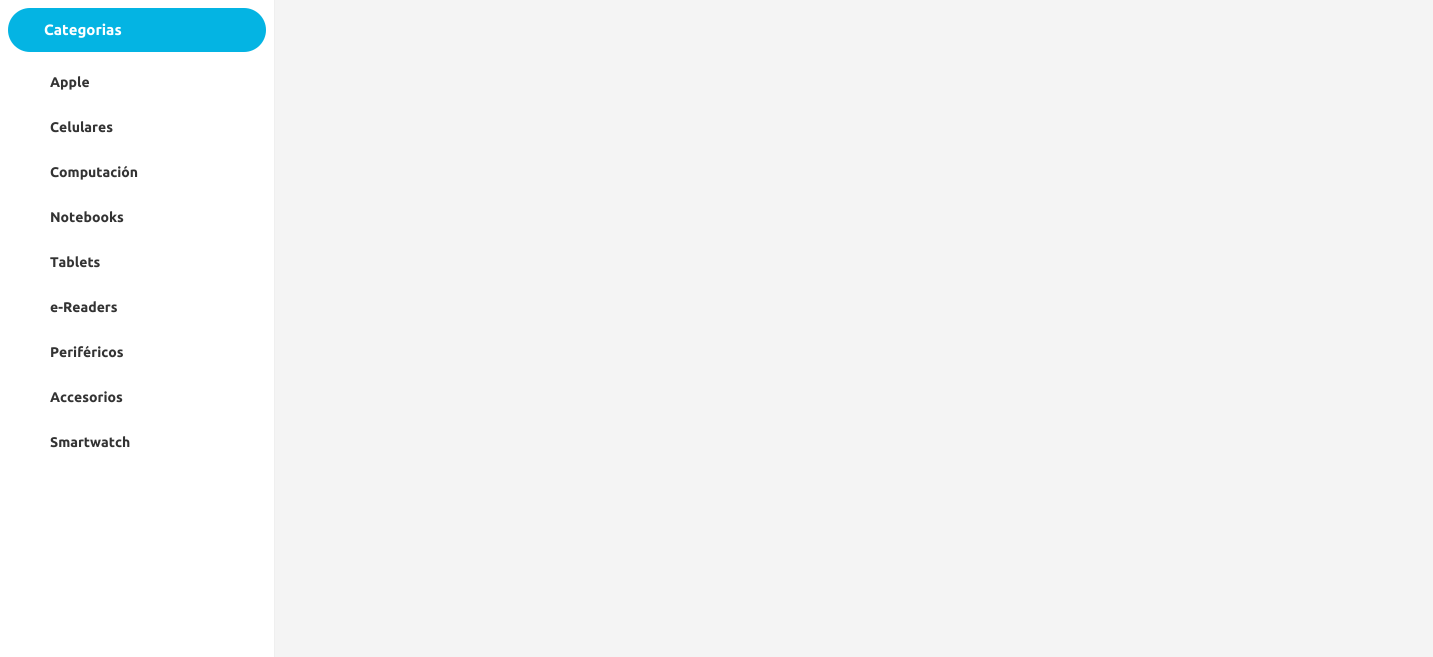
import math
import cairocffi as cairo

surface = cairo.ImageSurface(cairo.FORMAT_RGB24, 1433, 657)
cr = cairo.Context(surface)
options = cairo.FontOptions()
options.set_hint_metrics(cairo.HINT_METRICS_OFF)
options.set_hint_style(cairo.HINT_STYLE_NONE)
cr.set_font_options(options)
cr.set_miter_limit(4)


def use_color(code):
    cr.set_source_rgb(*(v / 255 for v in bytes.fromhex(code[-6:])))


def round_rect(x, y, w, h, r):
    cr.new_sub_path()
    for i, (u, v) in enumerate([(x + w - r, y + h - r), (x + r, y + h - r), (x + r, y + r), (x + w - r, y + r)]):
        cr.arc(u, v, r, i * math.pi / 2, (i + 1) * math.pi / 2)
    cr.close_path()


use_color("#f4f4f4")
cr.paint()
use_color("#ffffff")
cr.rectangle(0, 0, 274, 657)
cr.fill()
use_color("#efefef")
cr.rectangle(274, 0, 1, 657)
cr.fill()
use_color("#04b4e3")
round_rect(8, 8, 258, 44, 22)
cr.fill()
cr.select_font_face("Ubuntu", cairo.FONT_SLANT_NORMAL, cairo.FONT_WEIGHT_BOLD)
cr.set_font_size(15)
use_color("#ffffff")
cr.move_to(44, 35)
cr.show_text("Categorias")
cr.set_font_size(14)
use_color("#333333")
cr.move_to(50, 87)
cr.show_text("Apple")
cr.move_to(50, 132)
cr.show_text("Celulares")
cr.move_to(50, 177)
cr.show_text("Computación")
cr.move_to(50, 222)
cr.show_text("Notebooks")
cr.move_to(50, 267)
cr.show_text("Tablets")
cr.move_to(50, 312)
cr.show_text("e-Readers")
cr.move_to(50, 357)
cr.show_text("Periféricos")
cr.move_to(50, 402)
cr.show_text("Accesorios")
cr.move_to(50, 447)
cr.show_text("Smartwatch")
surface.write_to_png("result.png")
